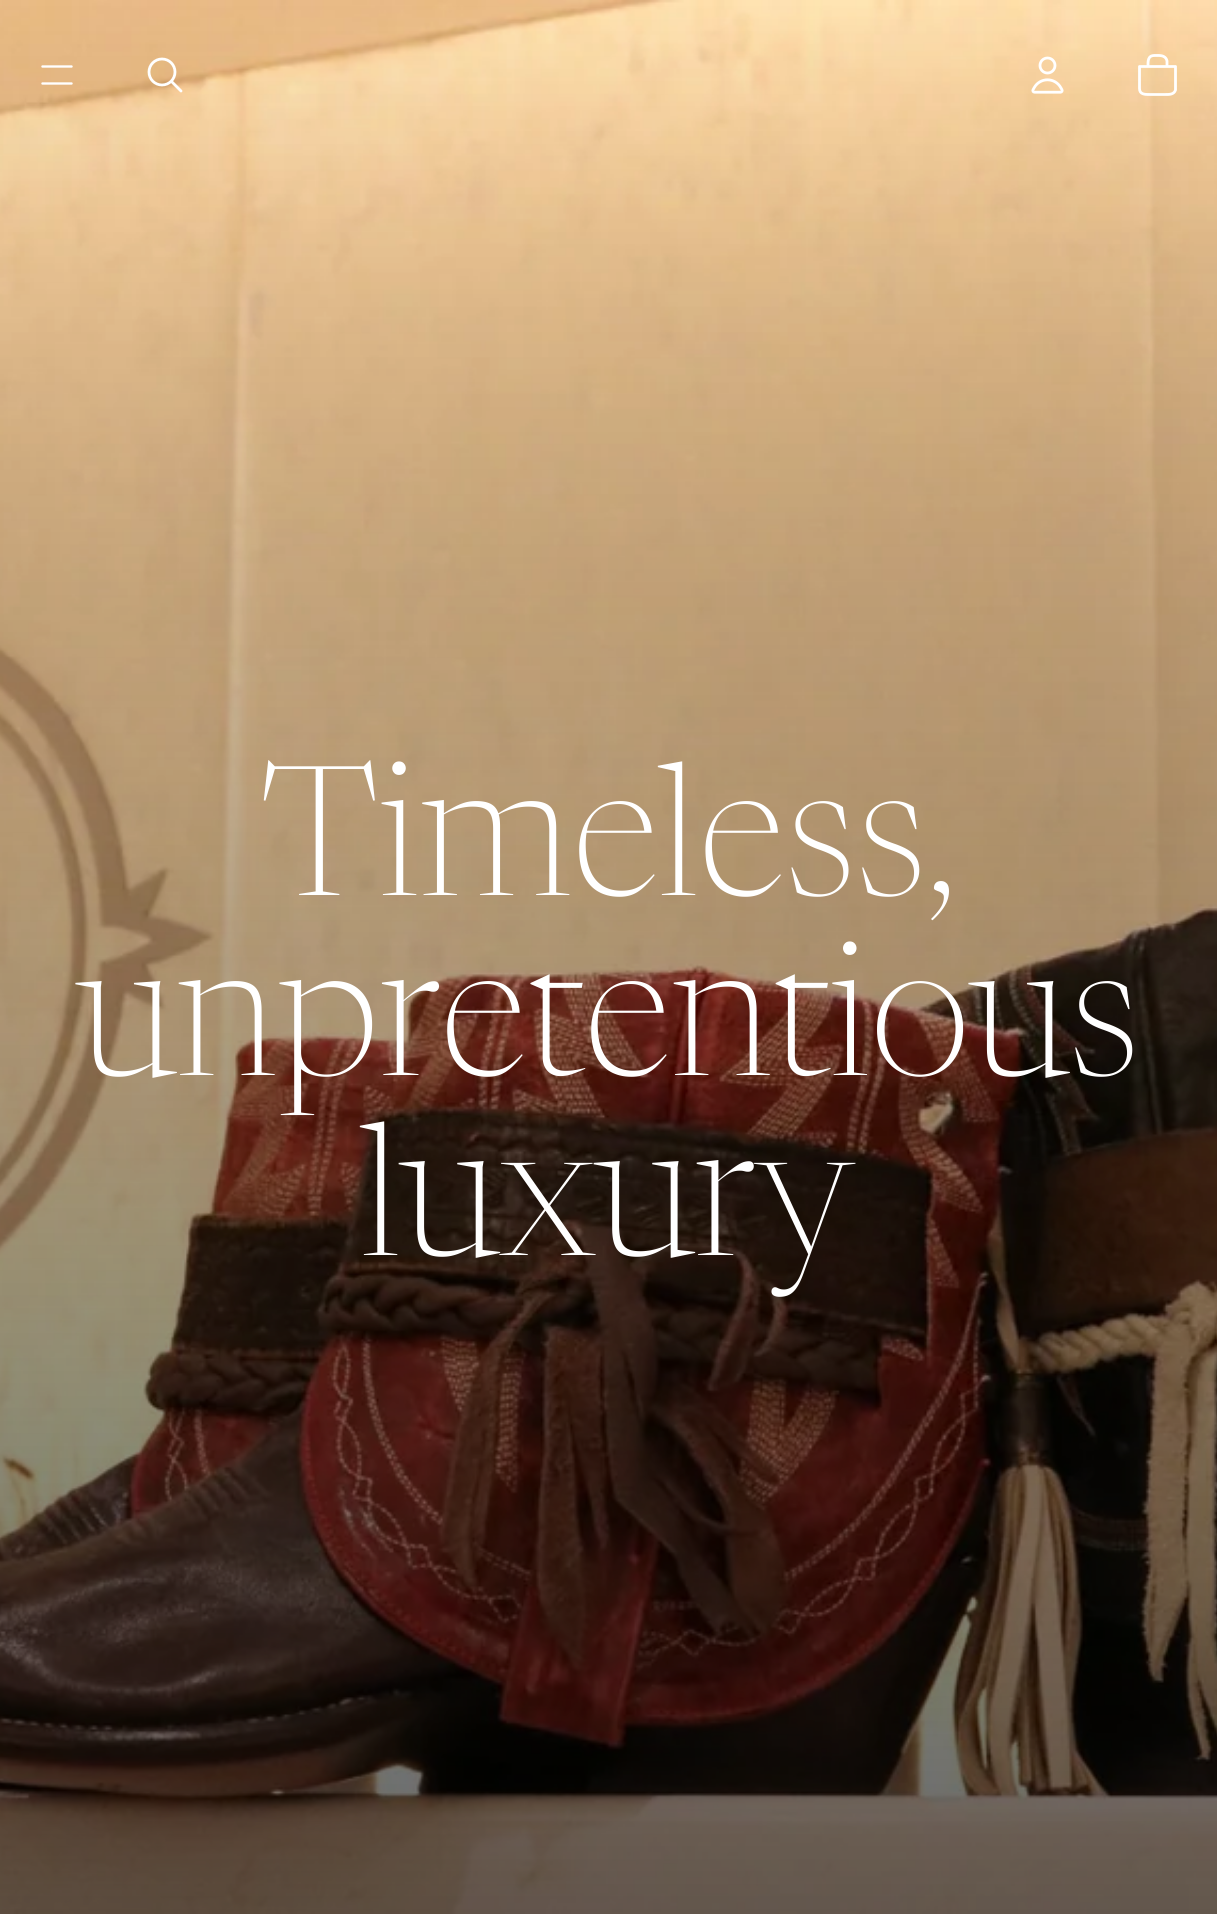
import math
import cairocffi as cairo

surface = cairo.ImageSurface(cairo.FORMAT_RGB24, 1217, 1914)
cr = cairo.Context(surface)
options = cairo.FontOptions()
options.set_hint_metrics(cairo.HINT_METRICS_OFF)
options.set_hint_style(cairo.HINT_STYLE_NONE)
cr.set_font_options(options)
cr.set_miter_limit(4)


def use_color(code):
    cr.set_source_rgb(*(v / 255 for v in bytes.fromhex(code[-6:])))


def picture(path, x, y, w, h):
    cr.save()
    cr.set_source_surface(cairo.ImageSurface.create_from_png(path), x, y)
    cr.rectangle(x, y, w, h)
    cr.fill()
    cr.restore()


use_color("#ffffff")
cr.paint()
picture("img2.png", 0, 0, 1217, 1914)
cr.new_path()
cr.move_to(42.5, 66.5)
cr.line_to(71.5, 66.5)
cr.move_to(42.5, 83.5)
cr.line_to(71.5, 83.5)
use_color("#ffffff")
cr.set_line_width(2.4)
cr.set_line_cap(cairo.LINE_CAP_ROUND)
cr.stroke()
cr.arc(162, 72, 13, 0, 2 * math.pi)
cr.set_line_width(2.8)
cr.set_line_cap(cairo.LINE_CAP_BUTT)
cr.stroke()
cr.new_path()
cr.move_to(172, 82)
cr.line_to(181, 91)
cr.set_line_cap(cairo.LINE_CAP_ROUND)
cr.set_line_join(cairo.LINE_JOIN_ROUND)
cr.stroke()
picture("img1.png", 1031, 56, 33, 38)
cr.new_path()
cr.move_to(1139.5, 66.5)
cr.line_to(1175.5, 66.5)
cr.line_to(1175.5, 90)
cr.curve_to(1174, 94.5, 1169.5, 94.5, 1165.5, 94.5)
cr.line_to(1149.5, 94.5)
cr.curve_to(1145, 94.5, 1139.5, 94.5, 1139.5, 88.5)
cr.close_path()
cr.move_to(1154, 55.5)
cr.curve_to(1159, 55.5, 1165.5, 54.5, 1167, 61)
cr.line_to(1167, 66.5)
cr.line_to(1148, 66.5)
cr.curve_to(1148, 61.5, 1147.5, 55.5, 1154.5, 55.5)
cr.stroke()
cr.select_font_face("Newsreader ExtraLight")
cr.set_font_size(180)
cr.move_to(260, 895)
cr.show_text("Timeless,")
cr.move_to(77, 1075)
cr.show_text("unpretentious")
cr.move_to(361, 1255)
cr.show_text("luxury")
surface.write_to_png("result.png")
